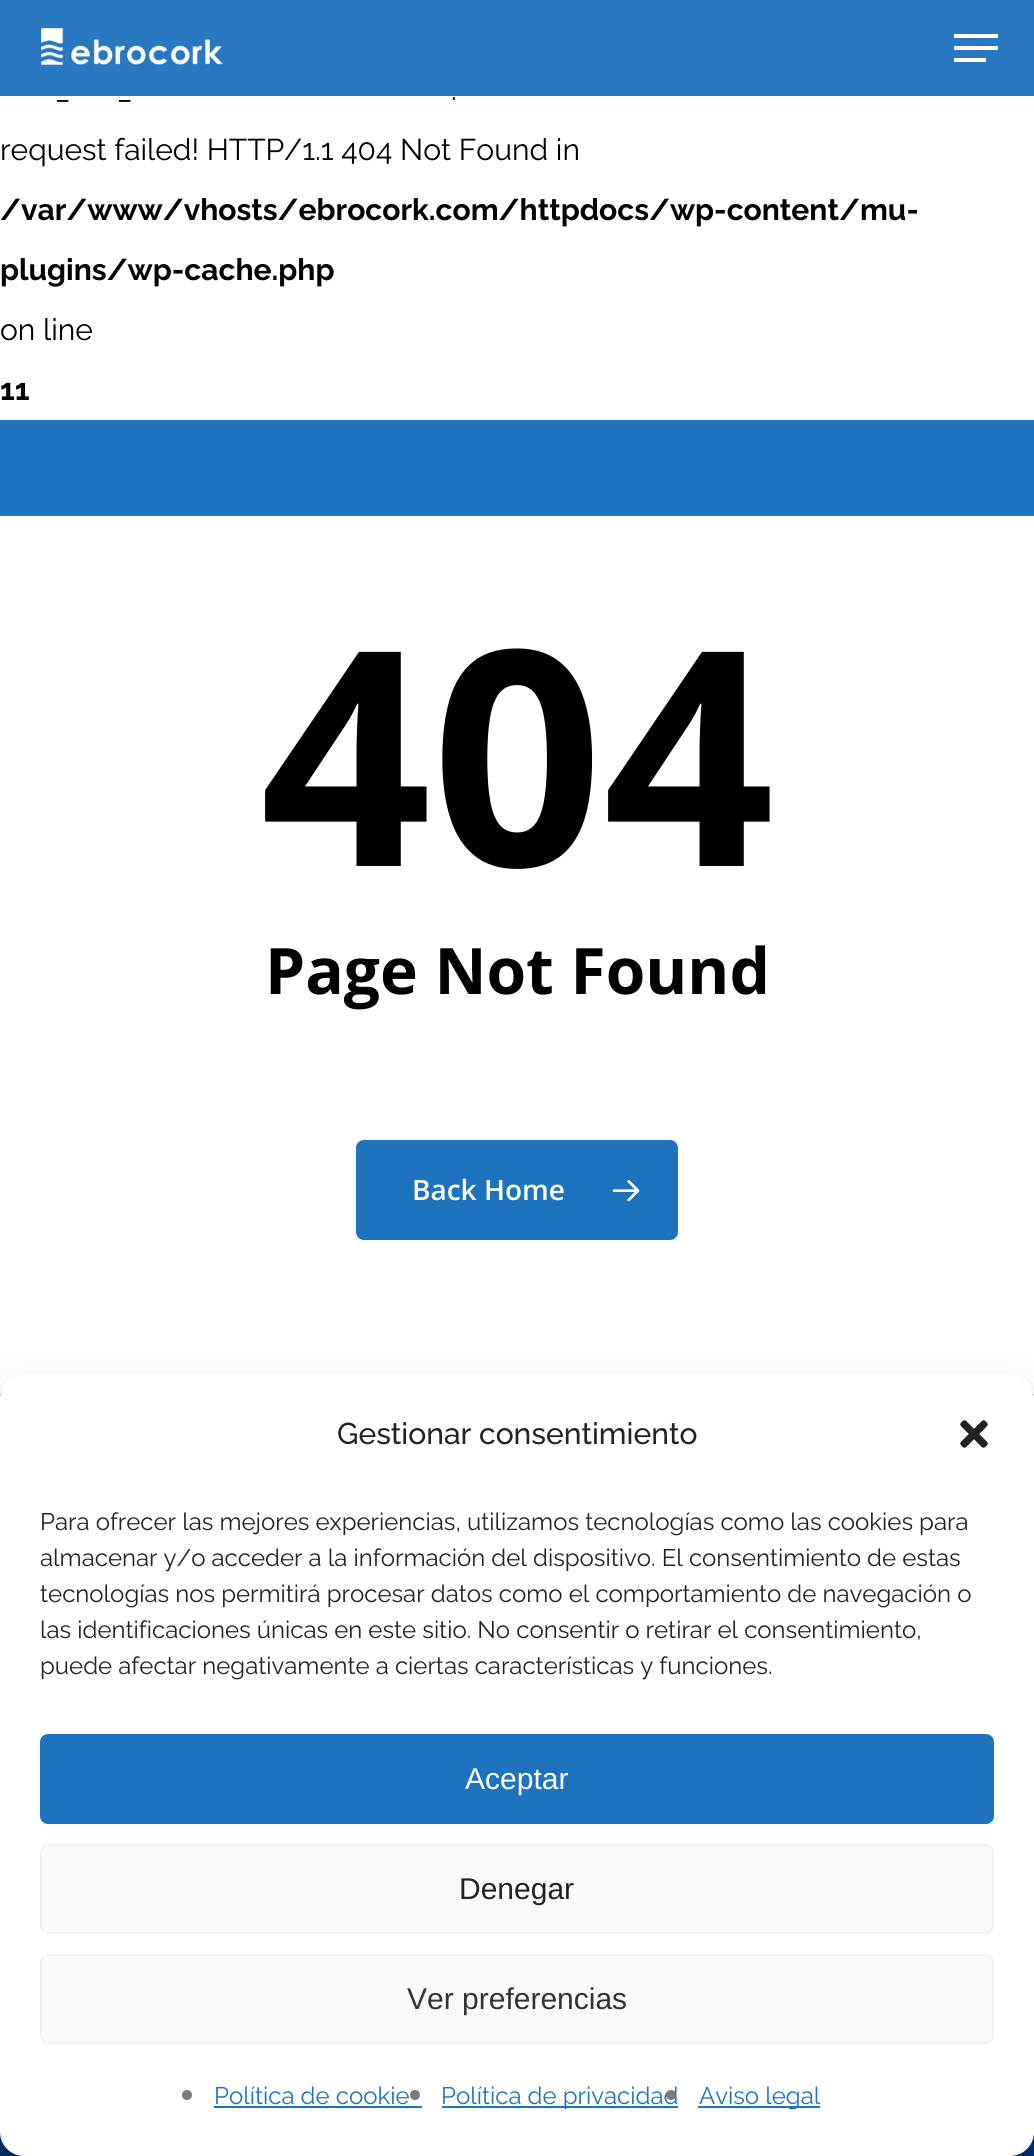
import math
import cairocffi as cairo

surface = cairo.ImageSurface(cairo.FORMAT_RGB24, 1034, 2156)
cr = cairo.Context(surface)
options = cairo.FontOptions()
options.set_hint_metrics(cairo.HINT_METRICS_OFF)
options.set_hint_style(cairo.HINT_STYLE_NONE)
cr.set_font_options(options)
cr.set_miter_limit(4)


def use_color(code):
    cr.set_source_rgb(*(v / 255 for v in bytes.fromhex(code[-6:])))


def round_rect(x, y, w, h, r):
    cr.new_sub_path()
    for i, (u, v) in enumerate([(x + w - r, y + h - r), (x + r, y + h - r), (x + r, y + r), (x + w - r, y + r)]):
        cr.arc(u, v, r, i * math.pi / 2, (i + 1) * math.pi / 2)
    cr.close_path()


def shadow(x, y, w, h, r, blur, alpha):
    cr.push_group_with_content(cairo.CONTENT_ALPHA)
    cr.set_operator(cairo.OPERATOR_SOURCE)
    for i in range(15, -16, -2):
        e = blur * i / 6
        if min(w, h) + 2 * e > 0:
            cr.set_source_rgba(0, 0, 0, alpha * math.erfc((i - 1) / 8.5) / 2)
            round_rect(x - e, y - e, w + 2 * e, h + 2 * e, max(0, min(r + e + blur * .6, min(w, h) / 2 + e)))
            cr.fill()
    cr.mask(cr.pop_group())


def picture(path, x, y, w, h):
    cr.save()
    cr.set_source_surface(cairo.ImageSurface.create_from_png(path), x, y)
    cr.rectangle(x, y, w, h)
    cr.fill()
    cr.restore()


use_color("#ffffff")
cr.paint()
cr.select_font_face("Raleway")
cr.set_font_size(30)
use_color("#000000")
cr.move_to(451, 100)
cr.show_text(".")
cr.move_to(55, 100)
cr.show_text("_")
cr.move_to(117, 100)
cr.show_text("_")
cr.move_to(0, 160)
cr.show_text("request failed! HTTP/1.1 404 Not Found in")
cr.select_font_face("Raleway", cairo.FONT_SLANT_NORMAL, cairo.FONT_WEIGHT_BOLD)
cr.move_to(0, 220)
cr.show_text("/var/www/vhosts/ebrocork.com/httpdocs/wp-content/mu-")
cr.move_to(0, 280)
cr.show_text("plugins/wp-cache.php")
cr.select_font_face("Raleway")
cr.move_to(0, 340)
cr.show_text("on line")
cr.select_font_face("Raleway", cairo.FONT_SLANT_NORMAL, cairo.FONT_WEIGHT_BOLD)
cr.move_to(0, 400)
cr.show_text("11")
cr.set_source_rgba(0.118, 0.451, 0.745, 0.96)
cr.rectangle(0, 0, 1034, 96)
cr.fill()
picture("img1.png", 41, 28, 182, 37)
use_color("#ffffff")
cr.rectangle(954, 34, 44, 4)
cr.fill()
cr.rectangle(954, 58, 32, 4)
cr.fill()
cr.rectangle(954, 46, 44, 4)
cr.fill()
use_color("#1e73be")
cr.rectangle(0, 420, 1034, 96)
cr.fill()
cr.select_font_face("Open Sans", cairo.FONT_SLANT_NORMAL, cairo.FONT_WEIGHT_BOLD)
cr.set_font_size(300)
use_color("#000000")
cr.move_to(260, 866)
cr.show_text("404")
cr.set_font_size(64)
cr.move_to(265, 994)
cr.show_text("Page Not Found")
use_color("#1e73be")
round_rect(356, 1140, 322, 100, 8)
cr.fill()
cr.select_font_face("Open Sans SemiBold")
cr.set_font_size(28)
use_color("#ffffff")
cr.move_to(412, 1200)
cr.show_text("Back Home")
picture("img2.png", 612, 1180, 28, 22)
use_color("#00377f")
cr.rectangle(0, 1394, 1034, 762)
cr.fill()
use_color("#000000")
shadow(0, 1386, 1034, 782, 24, 6, 0.23)
shadow(0, 1394, 1034, 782, 24, 20, 0.19)
use_color("#ffffff")
round_rect(0, 1374, 1034, 782, 24)
cr.fill()
cr.select_font_face("Raleway Medium")
cr.set_font_size(30)
use_color("#222222")
cr.move_to(337, 1444)
cr.show_text("Gestionar consentimiento")
picture("img3.png", 960, 1420, 28, 28)
cr.select_font_face("Raleway")
cr.set_font_size(24)
cr.move_to(40, 1530)
cr.show_text("Para ofrecer las mejores experiencias, utilizamos tecnologías como las cookies para")
cr.move_to(40, 1566)
cr.show_text("almacenar y/o acceder a la información del dispositivo. El consentimiento de estas")
cr.move_to(40, 1602)
cr.show_text("tecnologías nos permitirá procesar datos como el comportamiento de navegación o")
cr.move_to(40, 1638)
cr.show_text("las identificaciones únicas en este sitio. No consentir o retirar el consentimiento,")
cr.move_to(40, 1674)
cr.show_text("puede afectar negativamente a ciertas características y funciones.")
use_color("#1e73be")
round_rect(41, 1735, 952, 88, 7)
cr.fill_preserve()
cr.stroke()
cr.select_font_face("Liberation Sans")
cr.set_font_size(30)
use_color("#ffffff")
cr.move_to(465, 1789)
cr.show_text("Aceptar")
use_color("#f9f9f9")
round_rect(41, 1845, 952, 88, 7)
cr.fill_preserve()
use_color("#f2f2f2")
cr.stroke()
use_color("#222222")
cr.move_to(459, 1899)
cr.show_text("Denegar")
use_color("#f9f9f9")
round_rect(41, 1955, 952, 88, 7)
cr.fill_preserve()
use_color("#f2f2f2")
cr.stroke()
use_color("#333333")
cr.move_to(407, 2009)
cr.show_text("Ver preferencias")
use_color("#7b7b7b")
cr.new_path()
cr.arc(187, 2095, 5, 0, 2 * math.pi)
cr.fill()
cr.select_font_face("Raleway")
cr.set_font_size(24)
use_color("#1e73be")
cr.move_to(214, 2104)
cr.show_text("Política de cookie")
cr.rectangle(214, 2106, 208, 2)
cr.fill()
use_color("#7b7b7b")
cr.arc(415, 2095, 5, 0, 2 * math.pi)
cr.fill()
use_color("#1e73be")
cr.rectangle(442, 2106, 236, 2)
cr.fill()
cr.move_to(441, 2104)
cr.show_text("Política de privacidad")
use_color("#7b7b7b")
cr.new_path()
cr.arc(671, 2095, 5, 0, 2 * math.pi)
cr.fill()
use_color("#1e73be")
cr.rectangle(698, 2106, 122, 2)
cr.fill()
cr.move_to(699, 2104)
cr.show_text("Aviso legal")
surface.write_to_png("result.png")
